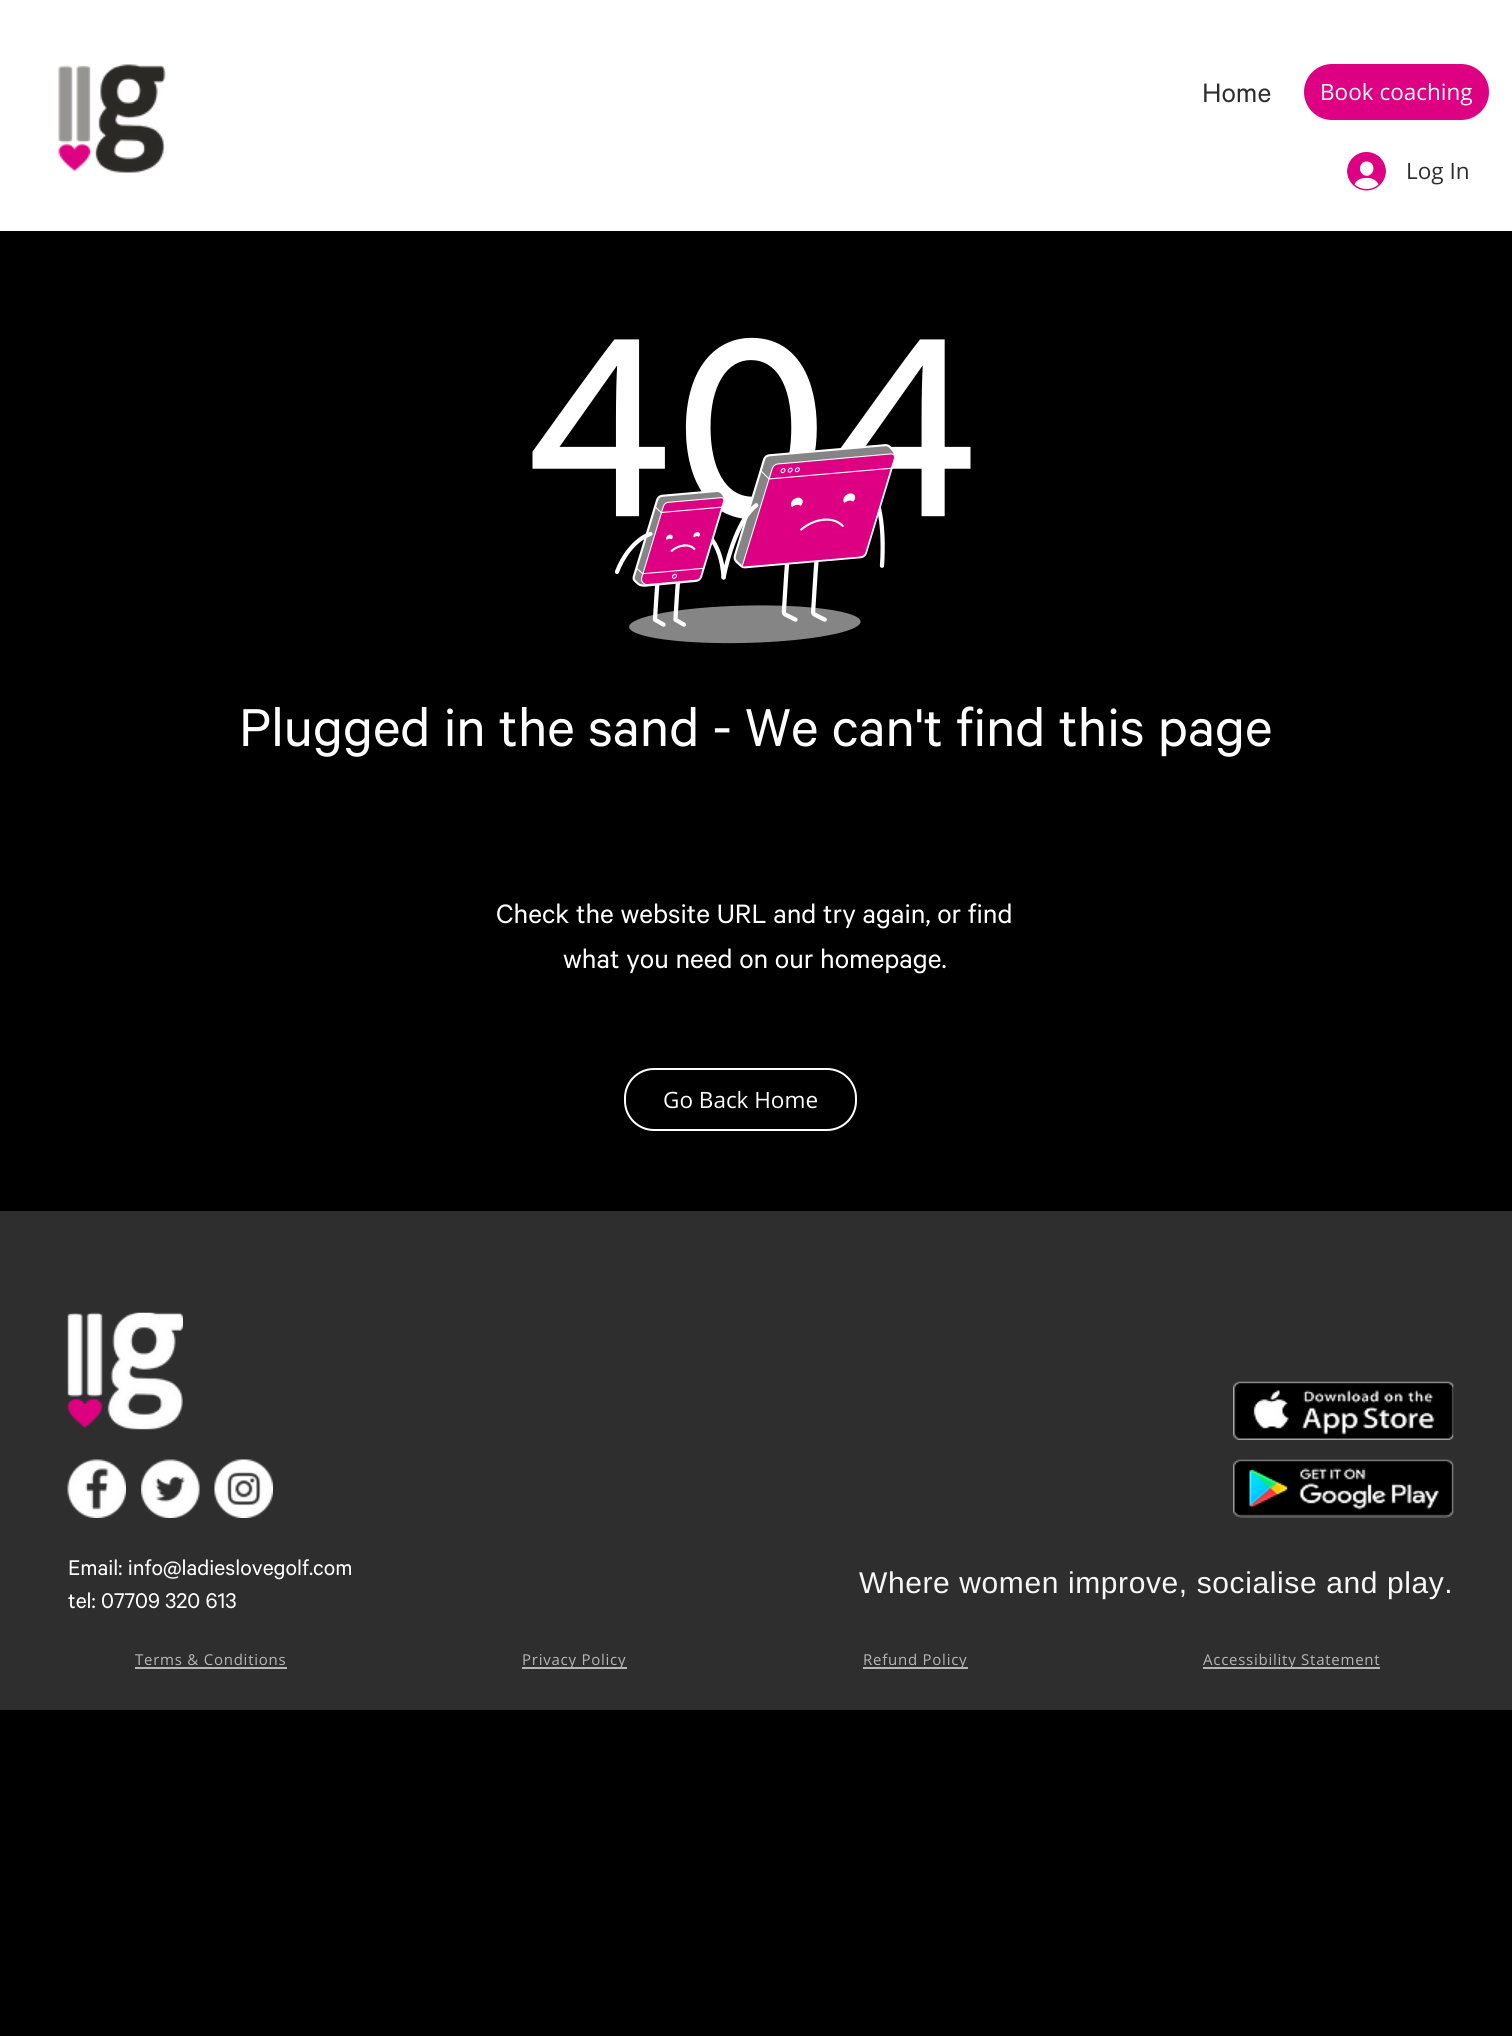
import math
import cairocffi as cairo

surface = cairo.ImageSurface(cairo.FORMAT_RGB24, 1512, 2036)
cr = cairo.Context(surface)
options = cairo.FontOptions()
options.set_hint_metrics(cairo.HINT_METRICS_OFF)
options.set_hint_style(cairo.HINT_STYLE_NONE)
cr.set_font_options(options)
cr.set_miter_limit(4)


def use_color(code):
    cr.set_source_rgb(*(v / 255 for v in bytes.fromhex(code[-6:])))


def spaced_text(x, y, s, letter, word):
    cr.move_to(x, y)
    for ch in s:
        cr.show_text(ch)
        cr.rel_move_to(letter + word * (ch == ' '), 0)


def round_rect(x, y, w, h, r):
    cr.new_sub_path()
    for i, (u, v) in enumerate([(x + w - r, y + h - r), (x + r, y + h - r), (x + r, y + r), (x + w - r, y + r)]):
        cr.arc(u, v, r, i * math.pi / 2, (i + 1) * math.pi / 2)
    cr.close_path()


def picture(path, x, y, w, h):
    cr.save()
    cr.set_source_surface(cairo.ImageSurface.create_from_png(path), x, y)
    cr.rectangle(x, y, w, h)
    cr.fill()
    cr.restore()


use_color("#000000")
cr.paint()
use_color("#ffffff")
cr.rectangle(0, 0, 1512, 231)
cr.fill()
picture("img1.png", 58, 64, 108, 109)
cr.select_font_face("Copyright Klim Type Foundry")
cr.set_font_size(30)
use_color("#2e2e2e")
cr.move_to(1202, 102)
cr.show_text("Home")
use_color("#de0082")
round_rect(1303, 63, 187, 58, 29)
cr.fill_preserve()
use_color("#ffffff")
cr.stroke()
cr.select_font_face("Open Sans")
cr.set_font_size(22.5)
cr.move_to(1320, 100)
cr.show_text("Book coaching")
picture("img2.png", 1347, 152, 39, 39)
use_color("#2e2e2e")
cr.move_to(1406, 179)
cr.show_text("Log In")
picture("img3.png", 532, 337, 439, 307)
cr.select_font_face("Copyright Klim Type Foundry")
cr.set_font_size(60)
use_color("#ffffff")
cr.move_to(239, 746)
cr.show_text("Plugged in the sand - We can't find this page")
cr.set_font_size(30)
cr.move_to(496, 923)
cr.show_text("Check the website URL and try again, or find")
cr.move_to(563, 968)
cr.show_text("what you need on our homepage.")
round_rect(625, 1069, 231, 61, 29)
cr.stroke()
cr.select_font_face("Open Sans")
cr.set_font_size(22.5)
cr.move_to(663, 1108)
cr.show_text("Go Back Home")
use_color("#2e2e2e")
cr.rectangle(0, 1211, 1512, 499)
cr.fill()
picture("img4.png", 67, 1312, 116, 118)
picture("img5.png", 1233, 1381, 221, 59)
picture("img6.png", 67, 1459, 59, 59)
picture("img7.png", 141, 1459, 59, 59)
picture("img8.png", 214, 1459, 59, 59)
picture("img9.png", 1233, 1459, 221, 59)
cr.select_font_face("Copyright Klim Type Foundry")
cr.set_font_size(24)
use_color("#ffffff")
cr.move_to(68, 1575)
cr.show_text("Email: info@ladieslovegolf.com")
cr.move_to(68, 1608)
cr.show_text("tel: 07709 320 613")
cr.select_font_face("Liberation Sans")
cr.set_font_size(30)
use_color("#f7f7f7")
spaced_text(859, 1593, "Where women improve, socialise and play.", 0.6, 0)
cr.select_font_face("Open Sans")
cr.set_font_size(15)
use_color("#b6b6b6")
spaced_text(135, 1665, "Terms & Conditions", 0.75, 0)
cr.rectangle(135, 1667, 152, 2)
cr.fill()
cr.rectangle(522, 1667, 105, 2)
cr.fill()
spaced_text(522, 1665, "Privacy Policy", 0.75, 0)
cr.rectangle(863, 1667, 105, 2)
cr.fill()
spaced_text(863, 1665, "Refund Policy", 0.75, 0)
cr.rectangle(1203, 1667, 177, 2)
cr.fill()
spaced_text(1203, 1665, "Accessibility Statement", 0.75, 0)
surface.write_to_png("result.png")
